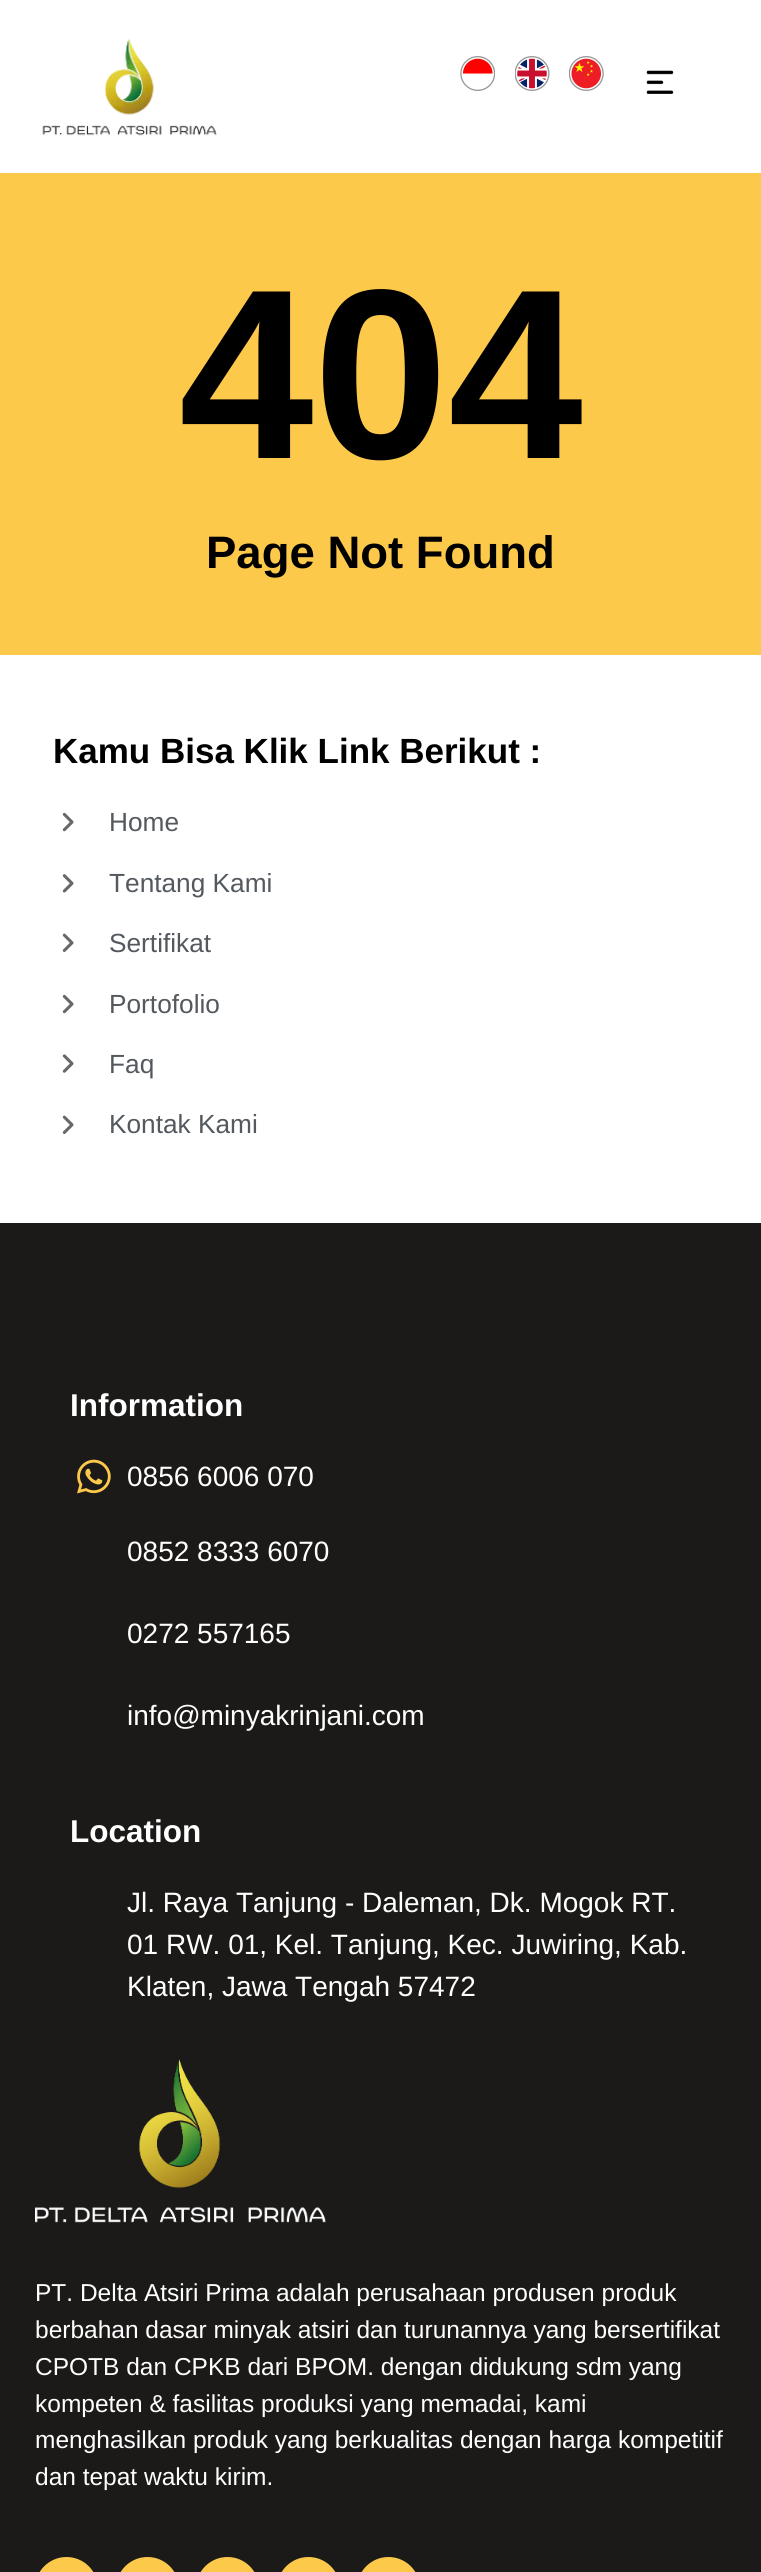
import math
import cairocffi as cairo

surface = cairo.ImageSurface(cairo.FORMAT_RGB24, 761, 2572)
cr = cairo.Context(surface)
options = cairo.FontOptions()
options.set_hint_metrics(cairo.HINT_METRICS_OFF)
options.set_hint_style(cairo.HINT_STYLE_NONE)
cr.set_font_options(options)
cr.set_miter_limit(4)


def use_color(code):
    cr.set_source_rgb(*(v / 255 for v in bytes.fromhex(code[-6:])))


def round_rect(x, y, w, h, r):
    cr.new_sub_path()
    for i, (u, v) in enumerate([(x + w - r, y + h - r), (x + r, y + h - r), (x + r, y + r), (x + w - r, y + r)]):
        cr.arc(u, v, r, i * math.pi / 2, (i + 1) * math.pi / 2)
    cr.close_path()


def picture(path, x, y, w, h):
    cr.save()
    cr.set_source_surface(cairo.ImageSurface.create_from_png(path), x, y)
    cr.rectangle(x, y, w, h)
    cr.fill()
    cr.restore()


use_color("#ffffff")
cr.paint()
picture("img1.png", 42, 39, 175, 97)
picture("img2.png", 460, 56, 35, 35)
picture("img3.png", 515, 56, 35, 35)
picture("img4.png", 569, 56, 35, 35)
picture("img5.png", 646, 70, 28, 24)
use_color("#fdc94b")
cr.rectangle(0, 173, 761, 482)
cr.fill()
cr.select_font_face("Liberation Sans", cairo.FONT_SLANT_NORMAL, cairo.FONT_WEIGHT_BOLD)
cr.set_font_size(242)
use_color("#000000")
cr.move_to(179, 458)
cr.show_text("404")
cr.set_font_size(45.5)
cr.move_to(206, 568)
cr.show_text("Page Not Found")
cr.set_font_size(35)
cr.move_to(53, 763)
cr.show_text("Kamu Bisa Klik Link Berikut :")
picture("img6.png", 62, 812, 12, 20)
cr.select_font_face("Liberation Sans")
cr.set_font_size(26.25)
use_color("#54595f")
cr.move_to(109, 831)
cr.show_text("Home")
picture("img7.png", 62, 874, 12, 19)
cr.move_to(109, 892)
cr.show_text("Tentang Kami")
picture("img8.png", 62, 933, 12, 19)
cr.move_to(109, 952)
cr.show_text("Sertifikat")
picture("img6.png", 62, 994, 12, 20)
cr.move_to(109, 1013)
cr.show_text("Portofolio")
picture("img9.png", 62, 1054, 12, 19)
cr.move_to(109, 1073)
cr.show_text("Faq")
picture("img8.png", 62, 1115, 12, 19)
cr.move_to(109, 1133)
cr.show_text("Kontak Kami")
use_color("#1b1a19")
cr.rectangle(0, 1223, 761, 1349)
cr.fill()
cr.select_font_face("Liberation Sans", cairo.FONT_SLANT_NORMAL, cairo.FONT_WEIGHT_BOLD)
cr.set_font_size(31.5)
use_color("#ffffff")
cr.move_to(70, 1416)
cr.show_text("Information")
picture("img10.png", 77, 1459, 34, 35)
cr.select_font_face("Liberation Sans")
cr.set_font_size(28)
cr.move_to(127, 1486)
cr.show_text("0856 6006 070")
cr.move_to(127, 1561)
cr.show_text("0852 8333 6070")
cr.move_to(127, 1643)
cr.show_text("0272 557165")
cr.move_to(127, 1725)
cr.show_text("info@minyakrinjani.com")
cr.select_font_face("Liberation Sans", cairo.FONT_SLANT_NORMAL, cairo.FONT_WEIGHT_BOLD)
cr.set_font_size(31.5)
cr.move_to(70, 1842)
cr.show_text("Location")
cr.select_font_face("Liberation Sans")
cr.set_font_size(28)
cr.move_to(127, 1912)
cr.show_text("Jl. Raya Tanjung - Daleman, Dk. Mogok RT.")
cr.move_to(127, 1954)
cr.show_text("01 RW. 01, Kel. Tanjung, Kec. Juwiring, Kab.")
cr.move_to(127, 1996)
cr.show_text("Klaten, Jawa Tengah 57472")
picture("img11.png", 35, 2059, 291, 164)
cr.set_font_size(24.5)
cr.move_to(35, 2301)
cr.show_text("PT. Delta Atsiri Prima adalah perusahaan produsen produk")
cr.move_to(35, 2338)
cr.show_text("berbahan dasar minyak atsiri dan turunannya yang bersertifikat")
cr.move_to(35, 2375)
cr.show_text("CPOTB dan CPKB dari BPOM. dengan didukung sdm yang")
cr.move_to(35, 2412)
cr.show_text("kompeten & fasilitas produksi yang memadai, kami")
cr.move_to(35, 2448)
cr.show_text("menghasilkan produk yang berkualitas dengan harga kompetitif")
cr.move_to(35, 2485)
cr.show_text("dan tepat waktu kirim.")
use_color("#fdc94b")
round_rect(35, 2557, 63, 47, 31.5)
cr.fill()
round_rect(116, 2557, 63, 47, 31.5)
cr.fill()
round_rect(196, 2557, 63, 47, 31.5)
cr.fill()
round_rect(277, 2557, 63, 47, 31.5)
cr.fill()
round_rect(357, 2557, 63, 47, 31.5)
cr.fill()
surface.write_to_png("result.png")
